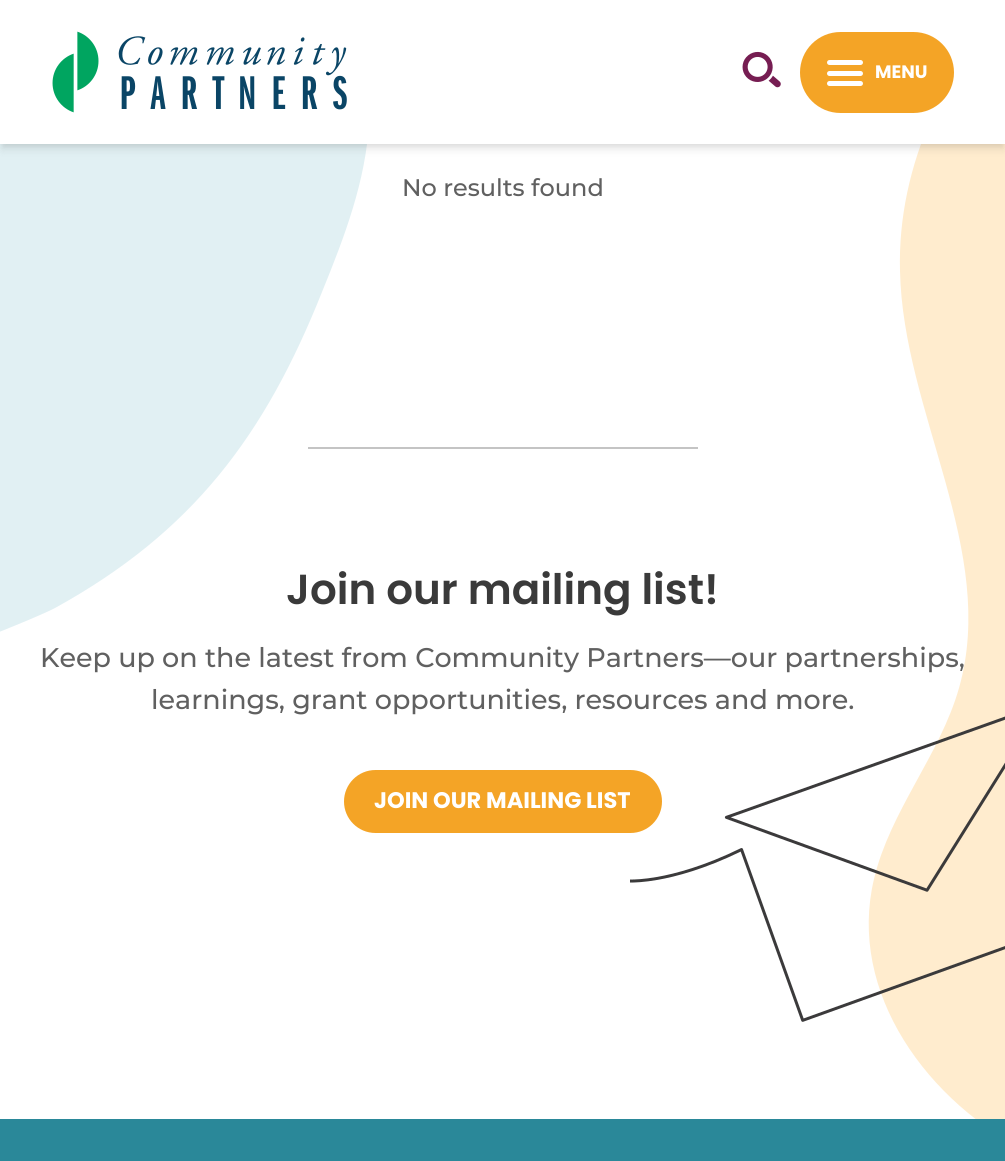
import math
import cairocffi as cairo

surface = cairo.ImageSurface(cairo.FORMAT_RGB24, 1005, 1161)
cr = cairo.Context(surface)
options = cairo.FontOptions()
options.set_hint_metrics(cairo.HINT_METRICS_OFF)
options.set_hint_style(cairo.HINT_STYLE_NONE)
cr.set_font_options(options)
cr.set_miter_limit(4)


def use_color(code):
    cr.set_source_rgb(*(v / 255 for v in bytes.fromhex(code[-6:])))


def round_rect(x, y, w, h, r):
    cr.new_sub_path()
    for i, (u, v) in enumerate([(x + w - r, y + h - r), (x + r, y + h - r), (x + r, y + r), (x + w - r, y + r)]):
        cr.arc(u, v, r, i * math.pi / 2, (i + 1) * math.pi / 2)
    cr.close_path()


def shadow(x, y, w, h, r, blur, alpha):
    cr.push_group_with_content(cairo.CONTENT_ALPHA)
    cr.set_operator(cairo.OPERATOR_SOURCE)
    for i in range(15, -16, -2):
        e = blur * i / 6
        if min(w, h) + 2 * e > 0:
            cr.set_source_rgba(0, 0, 0, alpha * math.erfc((i - 1) / 8.5) / 2)
            round_rect(x - e, y - e, w + 2 * e, h + 2 * e, max(0, min(r + e + blur * .6, min(w, h) / 2 + e)))
            cr.fill()
    cr.mask(cr.pop_group())


def picture(path, x, y, w, h):
    cr.save()
    cr.set_source_surface(cairo.ImageSurface.create_from_png(path), x, y)
    cr.rectangle(x, y, w, h)
    cr.fill()
    cr.restore()


use_color("#ffffff")
cr.paint()
use_color("#e1f0f3")
cr.new_path()
cr.move_to(-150, -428)
cr.curve_to(-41, -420, 55, -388, 91, -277)
cr.curve_to(108, -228, 119, -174, 155, -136)
cr.curve_to(198, -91, 266, -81, 312, -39)
cr.curve_to(356, 1, 373, 64, 369, 122)
cr.curve_to(366, 181, 344, 238, 322, 292)
cr.curve_to(265, 435, 193, 532, 55, 608)
cr.curve_to(37, 618, -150, 695, -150, 670)
cr.close_path()
cr.fill()
use_color("#ffecce")
cr.new_path()
cr.move_to(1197, -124)
cr.line_to(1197, 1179)
cr.curve_to(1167, 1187, 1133, 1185, 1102, 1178)
cr.curve_to(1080, 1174, 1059, 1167, 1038, 1157)
cr.line_to(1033, 1155)
cr.curve_to(927, 1103, 847, 992, 874, 879)
cr.curve_to(890, 811, 940, 755, 959, 688)
cr.curve_to(998, 551, 903, 413, 900, 271)
cr.curve_to(897, 165, 947, 61, 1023, -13)
cr.curve_to(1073, -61, 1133, -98, 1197, -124)
cr.close_path()
cr.fill()
use_color("#000000")
shadow(3, 6, 999, 138, 0, 3, 0.1)
shadow(2, 8, 1002, 141, 0, 4.5, 0.1)
use_color("#ffffff")
cr.rectangle(0, 0, 1005, 144)
cr.fill()
picture("img1.png", 52, 31, 295, 82)
picture("img2.png", 742, 51, 39, 37)
use_color("#f4a426")
round_rect(800, 32, 154, 81, 40.5)
cr.fill()
use_color("#ffffff")
round_rect(827, 71, 36, 5, 2.5)
cr.fill()
round_rect(827, 60, 36, 5, 2.5)
cr.fill()
round_rect(827, 81, 36, 5, 2.5)
cr.fill()
cr.select_font_face("Poppins", cairo.FONT_SLANT_NORMAL, cairo.FONT_WEIGHT_BOLD)
cr.set_font_size(18)
cr.move_to(875, 78)
cr.show_text("MENU")
cr.select_font_face("Montserrat Medium")
cr.set_font_size(24)
use_color("#606060")
cr.move_to(402, 196)
cr.show_text("No results found")
use_color("#c4c4c4")
cr.rectangle(308, 447, 390, 2)
cr.fill()
cr.select_font_face("Poppins SemiBold")
cr.set_font_size(42)
use_color("#3a3a3a")
cr.move_to(286, 604)
cr.show_text("Join our mailing list!")
cr.select_font_face("Montserrat Medium")
cr.set_font_size(27)
use_color("#606060")
cr.move_to(40, 667)
cr.show_text("Keep up on the latest from Community Partners—our partnerships,")
cr.move_to(151, 709)
cr.show_text("learnings, grant opportunities, resources and more.")
picture("img3.png", 630, 716, 375, 306)
use_color("#f4a426")
round_rect(344, 770, 318, 63, 31.5)
cr.fill()
cr.select_font_face("Poppins", cairo.FONT_SLANT_NORMAL, cairo.FONT_WEIGHT_BOLD)
cr.set_font_size(22.5)
use_color("#ffffff")
cr.move_to(374, 808)
cr.show_text("JOIN OUR MAILING LIST")
use_color("#2a8899")
cr.rectangle(0, 1119, 1005, 42)
cr.fill()
surface.write_to_png("result.png")
